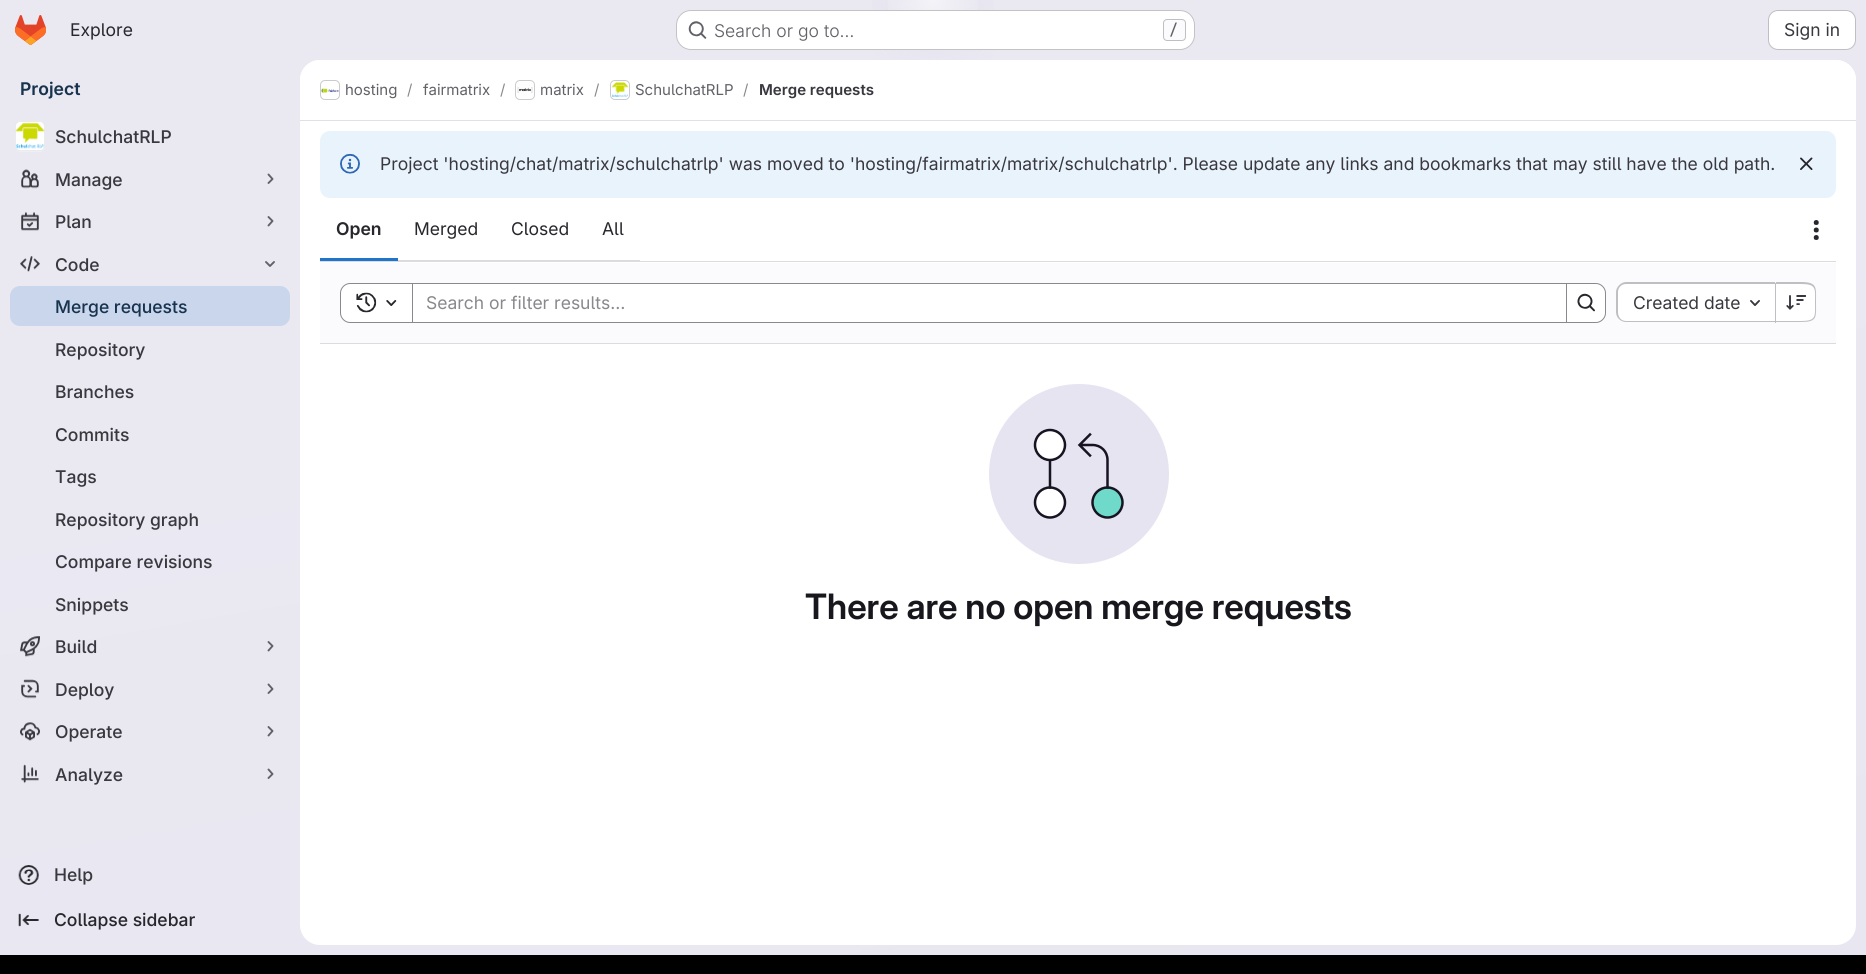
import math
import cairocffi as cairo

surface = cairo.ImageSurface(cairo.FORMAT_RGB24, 1866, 974)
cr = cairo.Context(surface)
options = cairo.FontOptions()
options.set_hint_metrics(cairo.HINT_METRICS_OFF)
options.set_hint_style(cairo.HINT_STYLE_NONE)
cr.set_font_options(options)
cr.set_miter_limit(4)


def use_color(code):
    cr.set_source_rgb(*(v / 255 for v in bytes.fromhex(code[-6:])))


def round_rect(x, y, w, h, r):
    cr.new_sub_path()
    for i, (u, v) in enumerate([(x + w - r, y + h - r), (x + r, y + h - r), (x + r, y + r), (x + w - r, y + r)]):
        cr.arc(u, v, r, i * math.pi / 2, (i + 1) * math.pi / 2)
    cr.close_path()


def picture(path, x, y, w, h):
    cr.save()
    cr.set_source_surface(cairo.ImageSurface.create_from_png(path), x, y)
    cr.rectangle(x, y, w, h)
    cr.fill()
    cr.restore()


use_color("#ffffff")
cr.paint()
gradient = cairo.LinearGradient(1045, 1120, 822, -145)
gradient.add_color_stop_rgba(0, 0.91, 0.902, 0.941, 1)
gradient.add_color_stop_rgba(0.7, 0.918, 0.914, 0.949, 1)
cr.set_source(gradient)
cr.rectangle(0, 0, 1866, 955)
cr.fill()
gradient = cairo.RadialGradient(0, 0, 0, 0, 0, 1)
gradient.set_matrix(cairo.Matrix(1 / 933, 0, 0, 1 / 975, -1 * 933 / 933, -1 * 0 / 975))
gradient.add_color_stop_rgba(0, 0.894, 0.886, 0.929, 1)
gradient.add_color_stop_rgba(0.09, 0.894, 0.886, 0.929, 0)
cr.set_source(gradient)
cr.rectangle(872, 0, 122, 60)
cr.fill()
gradient = cairo.RadialGradient(0, 0, 0, 0, 0, 1)
gradient.set_matrix(cairo.Matrix(1 / 933, 0, 0, 1 / 975, -1 * 933 / 933, -1 * 0 / 975))
gradient.add_color_stop_rgba(0, 0.894, 0.886, 0.925, 1)
gradient.add_color_stop_rgba(0.07, 0.894, 0.886, 0.925, 0)
cr.set_source(gradient)
cr.rectangle(914, 10, 38, 19)
cr.fill()
gradient = cairo.RadialGradient(933, 0, 0, 933, 0, 1350)
gradient.add_color_stop_rgba(0, 1, 1, 1, 0.6)
gradient.add_color_stop_rgba(0.04, 1, 1, 1, 0)
cr.set_source(gradient)
cr.rectangle(888, 0, 90, 45)
cr.fill()
picture("img1.png", 15, 15, 31, 30)
cr.select_font_face("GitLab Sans")
cr.set_font_size(17.5)
use_color("#28272d")
cr.move_to(70, 36)
cr.show_text("Explore")
use_color("#ffffff")
round_rect(676, 10, 519, 40, 15)
cr.fill()
round_rect(676.5, 10.5, 518, 39, 14.5)
cr.set_source_rgba(0.02, 0.02, 0.024, 0.24)
cr.set_line_width(1)
cr.stroke()
picture("img2.png", 688, 21, 19, 18)
cr.select_font_face("GitLab Sans Light")
use_color("#626168")
cr.move_to(714, 37)
cr.show_text("Search or go to…")
use_color("#fbfafd")
round_rect(1163.5, 19.5, 22, 21, 3.5)
cr.fill_preserve()
use_color("#bfbfc3")
cr.stroke()
cr.select_font_face("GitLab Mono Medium")
cr.set_font_size(15)
use_color("#626168")
cr.move_to(1169, 35)
cr.show_text("/")
use_color("#ffffff")
round_rect(1768.5, 10.5, 87, 39, 9.5)
cr.fill_preserve()
use_color("#bfbfc3")
cr.stroke()
cr.select_font_face("GitLab Sans")
cr.set_font_size(17.5)
use_color("#3a383f")
cr.move_to(1784, 36)
cr.show_text("Sign in")
cr.select_font_face("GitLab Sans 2 SemiBold")
use_color("#18334e")
cr.move_to(20, 95)
cr.show_text("Project")
picture("img3.png", 15, 121, 30, 31)
round_rect(15.5, 121.5, 29, 29, 4.5)
cr.set_source_rgba(0.02, 0.02, 0.024, 0.08)
cr.stroke()
cr.select_font_face("GitLab Sans Medium")
use_color("#3a383f")
cr.move_to(55, 143)
cr.show_text("SchulchatRLP")
picture("img4.png", 21, 169, 18, 20)
cr.move_to(55, 186)
cr.show_text("Manage")
cr.new_path()
cr.move_to(268.5, 174.5)
cr.line_to(272.5, 179)
cr.line_to(268.5, 183)
use_color("#626168")
cr.set_line_width(1.9)
cr.set_line_cap(cairo.LINE_CAP_ROUND)
cr.set_line_join(cairo.LINE_JOIN_ROUND)
cr.stroke()
picture("img5.png", 21, 212, 18, 19)
use_color("#3a383f")
cr.move_to(55, 228)
cr.show_text("Plan")
cr.new_path()
cr.move_to(268.5, 217)
cr.line_to(272.5, 221)
cr.line_to(268.5, 225.5)
use_color("#626168")
cr.stroke()
picture("img6.png", 20, 256, 20, 16)
use_color("#3a383f")
cr.move_to(55, 271)
cr.show_text("Code")
cr.new_path()
cr.move_to(274, 262)
cr.line_to(270, 266)
cr.line_to(266, 262)
use_color("#626168")
cr.stroke()
use_color("#c9d6eb")
round_rect(10, 286, 280, 40, 10)
cr.fill()
use_color("#18334e")
cr.move_to(55, 313)
cr.show_text("Merge requests")
use_color("#3a383f")
cr.move_to(55, 356)
cr.show_text("Repository")
cr.move_to(55, 398)
cr.show_text("Branches")
cr.move_to(55, 441)
cr.show_text("Commits")
cr.move_to(55, 483)
cr.show_text("Tags")
cr.move_to(55, 526)
cr.show_text("Repository graph")
cr.move_to(55, 568)
cr.show_text("Compare revisions")
cr.move_to(55, 611)
cr.show_text("Snippets")
picture("img7.png", 20, 636, 20, 21)
cr.move_to(55, 653)
cr.show_text("Build")
cr.new_path()
cr.move_to(268.5, 642)
cr.line_to(272.5, 646)
cr.line_to(268.5, 650.5)
use_color("#626168")
cr.stroke()
picture("img8.png", 21, 679, 18, 20)
use_color("#3a383f")
cr.move_to(55, 696)
cr.show_text("Deploy")
cr.new_path()
cr.move_to(268.5, 684.5)
cr.line_to(272.5, 689)
cr.line_to(268.5, 693)
use_color("#626168")
cr.stroke()
picture("img9.png", 20, 722, 20, 19)
use_color("#3a383f")
cr.move_to(55, 738)
cr.show_text("Operate")
cr.new_path()
cr.move_to(268.5, 727)
cr.line_to(272.5, 731)
cr.line_to(268.5, 735.5)
use_color("#626168")
cr.stroke()
picture("img10.png", 21, 764, 18, 20)
use_color("#3a383f")
cr.move_to(55, 781)
cr.show_text("Analyze")
cr.new_path()
cr.move_to(268.5, 769.5)
cr.line_to(272.5, 774)
cr.line_to(268.5, 778)
use_color("#626168")
cr.stroke()
picture("img11.png", 18, 865, 21, 20)
use_color("#3a383f")
cr.move_to(54, 881)
cr.show_text("Help")
picture("img12.png", 18, 913, 21, 14)
use_color("#28272d")
cr.move_to(54, 926)
cr.show_text("Collapse sidebar")
use_color("#ffffff")
round_rect(300, 60, 1556, 885, 20)
cr.fill()
cr.new_path()
cr.move_to(320, 60)
cr.line_to(1836, 60)
cr.curve_to(1847, 60, 1856, 69, 1856, 80)
cr.line_to(1856, 121)
cr.line_to(300, 121)
cr.line_to(300, 80)
cr.curve_to(300, 69, 309, 60, 320, 60)
cr.close_path()
cr.fill()
use_color("#e1dfec")
cr.rectangle(300, 120, 1556, 1)
cr.fill()
round_rect(320.5, 80.5, 19, 19, 4.5)
use_color("#dcdcde")
cr.set_line_width(1)
cr.set_line_cap(cairo.LINE_CAP_BUTT)
cr.set_line_join(cairo.LINE_JOIN_MITER)
cr.stroke()
picture("img13.png", 321, 88, 18, 5)
round_rect(320.5, 80.5, 19, 19, 4.5)
cr.set_source_rgba(0.02, 0.02, 0.024, 0.08)
cr.stroke()
cr.select_font_face("GitLab Sans")
cr.set_font_size(15)
use_color("#626168")
cr.move_to(345, 95)
cr.show_text("hosting")
use_color("#89888d")
cr.move_to(407, 95)
cr.show_text("/")
use_color("#626168")
cr.move_to(423, 95)
cr.show_text("fairmatrix")
use_color("#89888d")
cr.move_to(500, 95)
cr.show_text("/")
round_rect(515.5, 80.5, 19, 19, 4.5)
use_color("#dcdcde")
cr.stroke()
picture("img14.png", 516, 81, 18, 18)
round_rect(515.5, 80.5, 19, 19, 4.5)
cr.set_source_rgba(0.02, 0.02, 0.024, 0.08)
cr.stroke()
use_color("#626168")
cr.move_to(540, 95)
cr.show_text("matrix")
use_color("#89888d")
cr.move_to(594, 95)
cr.show_text("/")
round_rect(610.5, 80.5, 19, 19, 4.5)
use_color("#dcdcde")
cr.stroke()
picture("img15.png", 611, 81, 18, 18)
round_rect(610.5, 80.5, 19, 19, 4.5)
cr.set_source_rgba(0.02, 0.02, 0.024, 0.08)
cr.stroke()
use_color("#626168")
cr.move_to(635, 95)
cr.show_text("SchulchatRLP")
use_color("#89888d")
cr.move_to(743, 95)
cr.show_text("/")
cr.select_font_face("GitLab Sans 2 SemiBold")
use_color("#3a383f")
cr.move_to(759, 95)
cr.show_text("Merge requests")
use_color("#e9f3fc")
round_rect(320, 131, 1516, 67, 10)
cr.fill()
picture("img16.png", 340, 153, 20, 21)
cr.select_font_face("GitLab Sans")
cr.set_font_size(17.5)
use_color("#3a383f")
cr.move_to(380, 170)
cr.show_text("Project 'hosting/chat/matrix/schulchatrlp' was moved to 'hosting/fairmatrix/matrix/schulchatrlp'. Please update any links and bookmarks that may still have the old path.")
picture("img17.png", 1800, 157, 13, 13)
use_color("#dcdcde")
cr.rectangle(320, 261, 1516, 1)
cr.fill()
cr.rectangle(398, 260, 242, 1)
cr.fill()
cr.select_font_face("GitLab Sans 2 SemiBold")
use_color("#28272d")
cr.move_to(336, 235)
cr.show_text("Open")
use_color("#1f75cb")
cr.rectangle(320, 258, 78, 3)
cr.fill()
cr.select_font_face("GitLab Sans")
use_color("#28272d")
cr.move_to(414, 235)
cr.show_text("Merged")
cr.move_to(511, 235)
cr.show_text("Closed")
cr.move_to(602, 235)
cr.show_text("All")
picture("img18.png", 1813, 220, 6, 20)
use_color("#fbfafd")
cr.rectangle(320, 263, 1516, 80)
cr.fill()
use_color("#dcdcde")
cr.rectangle(320, 343, 1516, 1)
cr.fill()
use_color("#ffffff")
cr.rectangle(413, 284, 1153, 38)
cr.fill()
cr.rectangle(411.5, 283.5, 1156, 39)
use_color("#89888d")
cr.stroke()
use_color("#ffffff")
cr.new_path()
cr.move_to(350, 283.5)
cr.line_to(412.5, 283.5)
cr.line_to(412.5, 322.5)
cr.line_to(350, 322.5)
cr.curve_to(345, 322.5, 340.5, 318, 340.5, 313)
cr.line_to(340.5, 293)
cr.curve_to(340.5, 288, 345, 283.5, 350, 283.5)
cr.close_path()
cr.fill_preserve()
use_color("#89888d")
cr.stroke()
picture("img19.png", 356, 292, 21, 21)
picture("img20.png", 386, 300, 11, 6)
cr.move_to(426, 309)
cr.show_text("Search or filter results…")
use_color("#ffffff")
cr.new_path()
cr.move_to(1566.5, 283.5)
cr.line_to(1596, 283.5)
cr.curve_to(1601, 283.5, 1605.5, 288, 1605.5, 293)
cr.line_to(1605.5, 313)
cr.curve_to(1605.5, 318, 1601, 322.5, 1596, 322.5)
cr.line_to(1566.5, 322.5)
cr.close_path()
cr.fill_preserve()
use_color("#89888d")
cr.stroke()
picture("img21.png", 1577, 293, 18, 19)
use_color("#ffffff")
cr.new_path()
cr.move_to(1627, 284)
cr.line_to(1775, 284)
cr.line_to(1775, 321)
cr.line_to(1627, 321)
cr.curve_to(1622, 321, 1618, 317, 1618, 312)
cr.line_to(1618, 293)
cr.curve_to(1618, 288, 1622, 284, 1627, 284)
cr.close_path()
cr.fill()
use_color("#bfbfc3")
cr.set_fill_rule(cairo.FILL_RULE_EVEN_ODD)
cr.new_path()
cr.move_to(1626, 282)
cr.line_to(1775, 282)
cr.line_to(1775, 322)
cr.line_to(1626, 322)
cr.curve_to(1621, 322, 1616, 318, 1616, 312)
cr.line_to(1616, 292)
cr.curve_to(1616, 287, 1621, 282, 1626, 282)
cr.close_path()
cr.move_to(1626, 284)
cr.line_to(1775, 284)
cr.line_to(1775, 321)
cr.line_to(1626, 321)
cr.curve_to(1621, 321, 1618, 317, 1618, 312)
cr.line_to(1618, 292)
cr.curve_to(1618, 288, 1621, 284, 1626, 284)
cr.close_path()
cr.fill()
use_color("#3a383f")
cr.move_to(1633, 309)
cr.show_text("Created date")
picture("img22.png", 1750, 300, 10, 6)
use_color("#ffffff")
cr.new_path()
cr.move_to(1776, 284)
cr.line_to(1806, 284)
cr.curve_to(1811, 284, 1815, 288, 1815, 293)
cr.line_to(1815, 312)
cr.curve_to(1815, 317, 1811, 321, 1806, 321)
cr.line_to(1776, 321)
cr.close_path()
cr.fill()
use_color("#bfbfc3")
cr.new_path()
cr.move_to(1776, 282)
cr.line_to(1801, 282)
cr.curve_to(1818, 282, 1816, 288, 1816, 302)
cr.curve_to(1816, 317, 1818, 322, 1801, 322)
cr.line_to(1776, 322)
cr.close_path()
cr.move_to(1776, 284)
cr.line_to(1801, 284)
cr.curve_to(1817, 284, 1815, 289, 1815, 302)
cr.curve_to(1815, 316, 1817, 321, 1801, 321)
cr.line_to(1776, 321)
cr.close_path()
cr.fill()
cr.rectangle(1775, 283, 1, 40)
cr.fill()
picture("img23.png", 1786, 295, 21, 15)
use_color("#e7e4f2")
cr.arc(1079, 474, 90, 0, 2 * math.pi)
cr.fill()
use_color("#ffffff")
cr.arc(1050, 502.5, 15, 0, 2 * math.pi)
cr.fill_preserve()
use_color("#171321")
cr.set_line_width(2.5)
cr.stroke()
cr.new_path()
cr.move_to(1050, 460)
cr.line_to(1050, 487.5)
cr.set_line_cap(cairo.LINE_CAP_SQUARE)
cr.stroke()
use_color("#ffffff")
cr.arc(1050, 445, 15, 0, 2 * math.pi)
cr.fill_preserve()
use_color("#171321")
cr.set_line_cap(cairo.LINE_CAP_BUTT)
cr.stroke()
use_color("#6fdac9")
cr.arc(1107.5, 502.5, 15, 0, 2 * math.pi)
cr.fill_preserve()
use_color("#171321")
cr.stroke()
cr.new_path()
cr.move_to(1107.5, 487.5)
cr.line_to(1107.5, 460)
cr.curve_to(1107.5, 451.5, 1101, 445, 1092.5, 445)
cr.line_to(1081, 445)
cr.move_to(1090, 434.5)
cr.line_to(1079.5, 445)
cr.line_to(1090, 455.5)
cr.set_line_cap(cairo.LINE_CAP_SQUARE)
cr.stroke()
cr.select_font_face("GitLab Sans SemiBold")
cr.set_font_size(35)
use_color("#18171d")
cr.move_to(805, 619)
cr.show_text("There are no open merge requests")
use_color("#000000")
cr.rectangle(0, 955, 1866, 19)
cr.fill()
surface.write_to_png("result.png")
